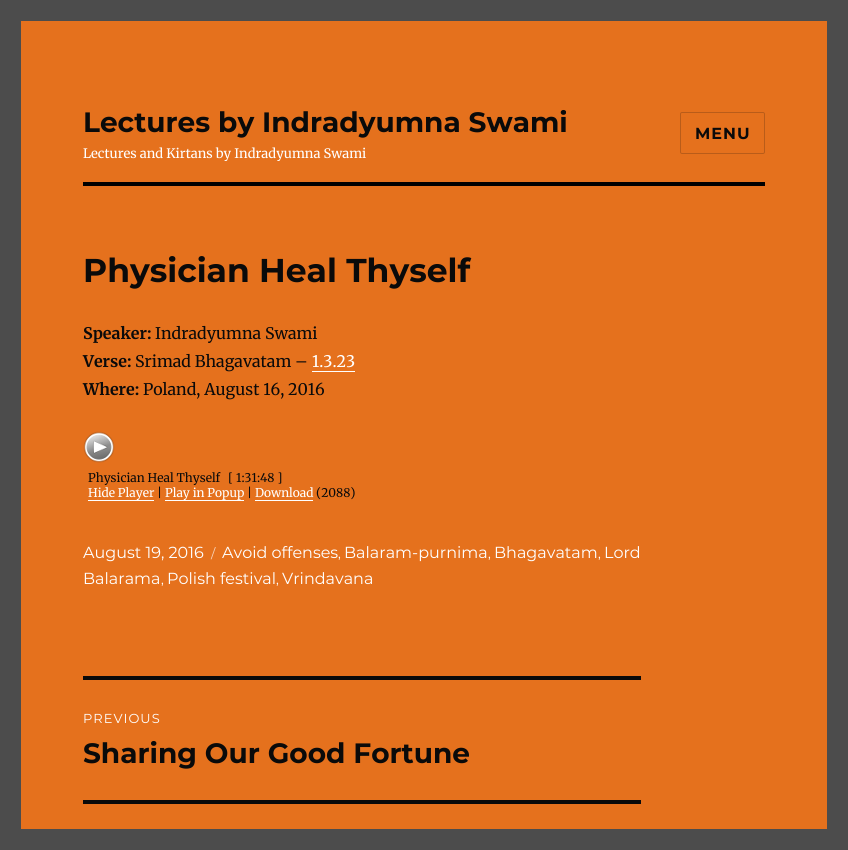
import math
import cairocffi as cairo

surface = cairo.ImageSurface(cairo.FORMAT_RGB24, 848, 850)
cr = cairo.Context(surface)
options = cairo.FontOptions()
options.set_hint_metrics(cairo.HINT_METRICS_OFF)
options.set_hint_style(cairo.HINT_STYLE_NONE)
cr.set_font_options(options)
cr.set_miter_limit(4)


def use_color(code):
    cr.set_source_rgb(*(v / 255 for v in bytes.fromhex(code[-6:])))


def spaced_text(x, y, s, letter, word):
    cr.move_to(x, y)
    for ch in s:
        cr.show_text(ch)
        cr.rel_move_to(letter + word * (ch == ' '), 0)


def round_rect(x, y, w, h, r):
    cr.new_sub_path()
    for i, (u, v) in enumerate([(x + w - r, y + h - r), (x + r, y + h - r), (x + r, y + r), (x + w - r, y + r)]):
        cr.arc(u, v, r, i * math.pi / 2, (i + 1) * math.pi / 2)
    cr.close_path()


def picture(path, x, y, w, h):
    cr.save()
    cr.set_source_surface(cairo.ImageSurface.create_from_png(path), x, y)
    cr.rectangle(x, y, w, h)
    cr.fill()
    cr.restore()


use_color("#4c4c4c")
cr.paint()
use_color("#e5711d")
cr.rectangle(21, 21, 806, 808)
cr.fill()
use_color("#000000")
cr.rectangle(83, 182, 682, 4)
cr.fill()
cr.select_font_face("Montserrat", cairo.FONT_SLANT_NORMAL, cairo.FONT_WEIGHT_BOLD)
cr.set_font_size(28)
use_color("#0a0a0a")
cr.move_to(83, 132)
cr.show_text("Lectures by Indradyumna Swami")
cr.save()
cr.rectangle(83, 105, 485, 56)
cr.clip()
cr.select_font_face("Merriweather")
cr.set_font_size(13)
use_color("#ffffff")
cr.move_to(83, 158)
cr.show_text("Lectures and Kirtans by Indradyumna Swami")
cr.restore()
round_rect(680.5, 112.5, 84, 41, 1.5)
use_color("#b95c19")
cr.set_line_width(1)
cr.stroke()
cr.set_font_size(16)
use_color("#0a0a0a")
spaced_text(695, 139, "MENU", 1, 0)
cr.set_font_size(33)
cr.move_to(83, 282)
cr.show_text("Physician Heal Thyself")
cr.select_font_face("Merriweather", cairo.FONT_SLANT_NORMAL, cairo.FONT_WEIGHT_BOLD)
cr.set_font_size(16)
cr.move_to(83, 339)
cr.show_text("Speaker:")
cr.select_font_face("Merriweather")
cr.move_to(155, 339)
cr.show_text("Indradyumna Swami")
cr.select_font_face("Merriweather", cairo.FONT_SLANT_NORMAL, cairo.FONT_WEIGHT_BOLD)
cr.move_to(83, 367)
cr.show_text("Verse:")
cr.select_font_face("Merriweather")
cr.move_to(135, 367)
cr.show_text("Srimad Bhagavatam –")
use_color("#ffffff")
cr.move_to(312, 367)
cr.show_text("1.3.23")
cr.rectangle(312, 371, 43, 1)
cr.fill()
cr.select_font_face("Merriweather", cairo.FONT_SLANT_NORMAL, cairo.FONT_WEIGHT_BOLD)
use_color("#0a0a0a")
cr.move_to(83, 395)
cr.show_text("Where:")
cr.select_font_face("Merriweather")
cr.move_to(143, 395)
cr.show_text("Poland, August 16, 2016")
picture("img1.png", 83, 431, 32, 32)
cr.set_font_size(12)
cr.move_to(88, 482)
cr.show_text("Physician Heal Thyself")
cr.move_to(228, 482)
cr.show_text("[ 1:31:48 ]")
use_color("#ffffff")
cr.move_to(88, 497)
cr.show_text("Hide Player")
cr.rectangle(88, 500, 66, 1)
cr.fill()
use_color("#0a0a0a")
cr.move_to(157, 497)
cr.show_text("|")
use_color("#ffffff")
cr.move_to(165, 497)
cr.show_text("Play in Popup")
cr.rectangle(165, 500, 79, 1)
cr.fill()
use_color("#0a0a0a")
cr.move_to(247, 497)
cr.show_text("|")
use_color("#ffffff")
cr.move_to(255, 497)
cr.show_text("Download")
cr.rectangle(255, 500, 58, 1)
cr.fill()
use_color("#0a0a0a")
cr.move_to(316, 497)
cr.show_text("(2088)")
cr.select_font_face("Montserrat")
cr.set_font_size(16)
use_color("#ffffff")
cr.move_to(83, 558)
cr.show_text("August 19, 2016")
cr.set_font_size(13)
use_color("#f7d4bb")
cr.move_to(211, 558)
cr.show_text("/")
cr.set_font_size(16)
use_color("#ffffff")
cr.move_to(222, 558)
cr.show_text("Avoid offenses")
cr.set_font_size(13)
cr.move_to(338, 558)
cr.show_text(",")
cr.set_font_size(16)
cr.move_to(344, 558)
cr.show_text("Balaram-purnima")
cr.set_font_size(13)
cr.move_to(488, 558)
cr.show_text(",")
cr.set_font_size(16)
cr.move_to(494, 558)
cr.show_text("Bhagavatam")
cr.set_font_size(13)
cr.move_to(598, 558)
cr.show_text(",")
cr.set_font_size(16)
cr.move_to(604, 558)
cr.show_text("Lord")
cr.move_to(83, 584)
cr.show_text("Balarama")
cr.set_font_size(13)
cr.move_to(161, 584)
cr.show_text(",")
cr.set_font_size(16)
cr.move_to(167, 584)
cr.show_text("Polish festival")
cr.set_font_size(13)
cr.move_to(276, 584)
cr.show_text(",")
cr.set_font_size(16)
cr.move_to(282, 584)
cr.show_text("Vrindavana")
use_color("#0a0a0a")
cr.rectangle(83, 676, 558, 4)
cr.fill()
cr.set_font_size(13)
use_color("#ffffff")
spaced_text(83, 723, "PREVIOUS", 1, 0)
cr.select_font_face("Montserrat", cairo.FONT_SLANT_NORMAL, cairo.FONT_WEIGHT_BOLD)
cr.set_font_size(28)
use_color("#0a0a0a")
cr.move_to(83, 763)
cr.show_text("Sharing Our Good Fortune")
cr.rectangle(83, 800, 558, 4)
cr.fill()
surface.write_to_png("result.png")
